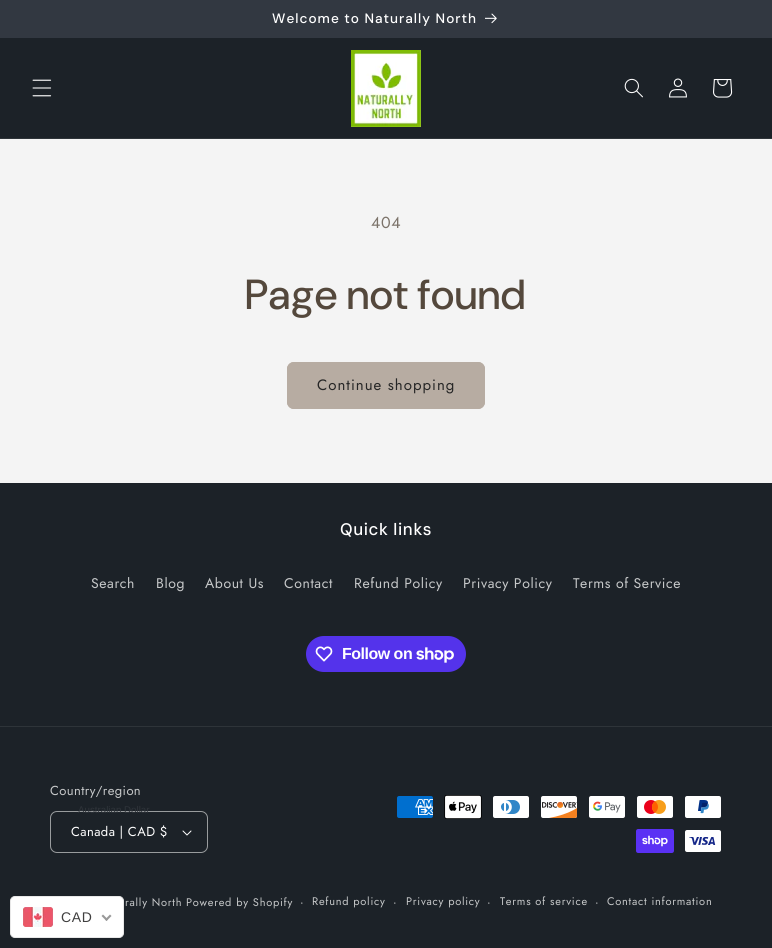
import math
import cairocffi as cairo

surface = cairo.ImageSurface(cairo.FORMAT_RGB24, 772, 948)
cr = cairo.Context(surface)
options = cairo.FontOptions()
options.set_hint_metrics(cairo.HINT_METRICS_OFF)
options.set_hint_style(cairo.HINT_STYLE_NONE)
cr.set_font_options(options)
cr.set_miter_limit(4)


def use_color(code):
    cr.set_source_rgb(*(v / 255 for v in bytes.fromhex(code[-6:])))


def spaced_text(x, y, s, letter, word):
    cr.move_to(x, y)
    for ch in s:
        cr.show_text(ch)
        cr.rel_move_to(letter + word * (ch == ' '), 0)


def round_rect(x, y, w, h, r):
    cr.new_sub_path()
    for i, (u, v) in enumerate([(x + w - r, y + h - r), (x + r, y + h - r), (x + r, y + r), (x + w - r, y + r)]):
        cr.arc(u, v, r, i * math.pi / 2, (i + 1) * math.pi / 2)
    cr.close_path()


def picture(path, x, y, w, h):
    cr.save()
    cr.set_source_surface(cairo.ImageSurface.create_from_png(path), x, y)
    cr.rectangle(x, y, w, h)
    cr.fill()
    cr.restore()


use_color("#f4f4f4")
cr.paint()
use_color("#323841")
cr.rectangle(0, 0, 772, 38)
cr.fill()
cr.select_font_face("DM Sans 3 Medium")
cr.set_font_size(13.6)
use_color("#ffffff")
spaced_text(272, 23, "Welcome to Naturally North", 1, 0)
picture("img1.png", 485, 13, 12, 11)
use_color("#1c2228")
cr.rectangle(0, 38, 772, 100)
cr.fill()
use_color("#2e3439")
cr.rectangle(0, 138, 772, 1)
cr.fill()
picture("img2.png", 32, 79, 20, 18)
picture("img3.png", 351, 50, 70, 77)
picture("img4.png", 624, 78, 19, 20)
picture("img5.png", 669, 78, 18, 20)
picture("img6.png", 713, 79, 20, 19)
cr.select_font_face("Jost")
cr.set_font_size(16)
use_color("#7c736a")
spaced_text(371, 228, "404", 0.6, 0)
cr.select_font_face("DM Sans Medium")
cr.set_font_size(42)
use_color("#54483c")
spaced_text(245, 309, "Page not found", 0.6, 0)
use_color("#b7aca2")
round_rect(287, 362, 198, 47, 7)
cr.fill()
round_rect(287.5, 362.5, 197, 46, 6.5)
cr.set_line_width(1)
cr.stroke()
cr.select_font_face("Jost")
cr.set_font_size(15)
use_color("#262626")
spaced_text(317, 390, "Continue shopping", 1, 0)
use_color("#1c2228")
cr.rectangle(0, 483, 772, 465)
cr.fill()
cr.select_font_face("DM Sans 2 Medium")
cr.set_font_size(16.75)
use_color("#ffffff")
spaced_text(340, 535, "Quick links", 0.6, 0)
cr.select_font_face("Jost")
cr.set_font_size(14)
use_color("#c6c8c9")
spaced_text(91, 588, "Search", 0.6, 0)
spaced_text(156, 588, "Blog", 0.6, 0)
spaced_text(205, 588, "About Us", 0.6, 0)
spaced_text(284, 588, "Contact", 0.6, 0)
spaced_text(354, 588, "Refund Policy", 0.6, 0)
spaced_text(463, 588, "Privacy Policy", 0.6, 0)
spaced_text(573, 588, "Terms of Service", 0.6, 0)
use_color("#5433eb")
round_rect(306, 636, 160, 36, 18)
cr.fill()
picture("img7.png", 315, 646, 18, 16)
cr.select_font_face("Liberation Sans", cairo.FONT_SLANT_NORMAL, cairo.FONT_WEIGHT_BOLD)
cr.set_font_size(16)
use_color("#ffffff")
spaced_text(342, 659, "Follow on", -0.5, 0)
picture("img8.png", 416, 647, 38, 16)
use_color("#2e3439")
cr.rectangle(0, 726, 772, 1)
cr.fill()
cr.select_font_face("Jost")
cr.set_font_size(13)
use_color("#c6c8c9")
spaced_text(50, 795, "Country/region", 0.4, 0)
picture("img9.png", 182, 830, 10, 6)
round_rect(50.5, 811.5, 157, 41, 6.5)
use_color("#999c9e")
cr.stroke()
use_color("#ffffff")
spaced_text(71, 836, "Canada | CAD $", 0.4, 0)
picture("img10.png", 397, 796, 36, 22)
picture("img11.png", 444, 795, 38, 24)
picture("img12.png", 493, 796, 36, 22)
picture("img13.png", 541, 796, 36, 22)
picture("img14.png", 589, 796, 36, 22)
picture("img15.png", 637, 796, 36, 22)
picture("img16.png", 685, 796, 36, 22)
picture("img17.png", 636, 829, 38, 24)
picture("img18.png", 685, 830, 36, 22)
cr.set_font_size(11)
use_color("#c6c8c9")
spaced_text(125, 906, "rally North", 0.75, 0)
spaced_text(186, 906, "Powered by Shopify", 0.75, 0)
cr.set_font_size(12)
spaced_text(300, 906, "·", 0.75, 0)
cr.set_font_size(11)
spaced_text(312, 905, "Refund policy", 0.75, 0)
cr.set_font_size(12)
spaced_text(393, 906, "·", 0.75, 0)
cr.set_font_size(11)
spaced_text(406, 905, "Privacy policy", 0.75, 0)
cr.set_font_size(12)
spaced_text(487, 906, "·", 0.75, 0)
cr.set_font_size(11)
spaced_text(500, 905, "Terms of service", 0.75, 0)
cr.set_font_size(12)
spaced_text(595, 906, "·", 0.75, 0)
cr.set_font_size(11)
spaced_text(607, 905, "Contact information", 0.75, 0)
use_color("#ffffff")
round_rect(10.5, 896.5, 113, 41, 4.5)
cr.fill_preserve()
use_color("#e8e8e8")
cr.stroke()
cr.select_font_face("Liberation Sans")
cr.set_font_size(9.75)
use_color("#2f343a")
cr.move_to(78, 813)
cr.show_text("Australian Dollar")
picture("img19.png", 23, 907, 30, 20)
cr.set_font_size(14)
use_color("#403f3f")
spaced_text(61, 922, "CAD", 0.6, 0)
use_color("#999999")
cr.new_path()
cr.move_to(110, 914.5)
cr.line_to(111.5, 916)
cr.line_to(106.5, 921)
cr.line_to(105, 919.5)
cr.close_path()
cr.fill()
cr.new_path()
cr.move_to(103, 914.5)
cr.line_to(108, 919.5)
cr.line_to(106.5, 921)
cr.line_to(101.5, 916)
cr.close_path()
cr.fill()
surface.write_to_png("result.png")
